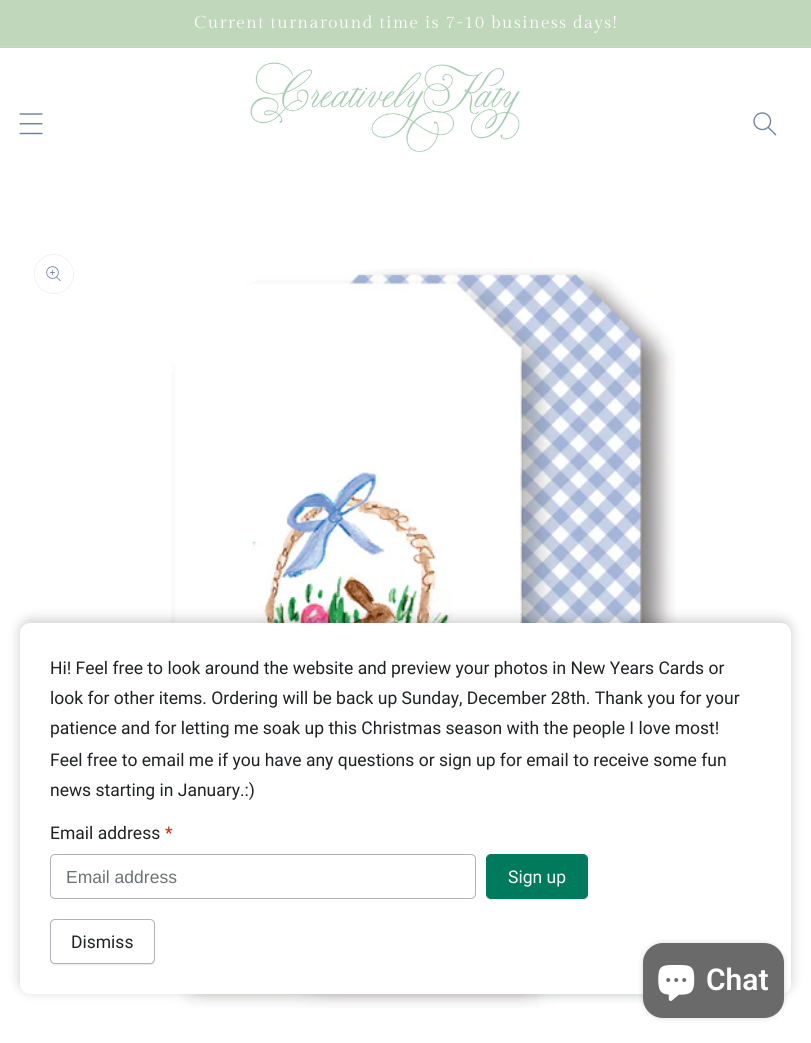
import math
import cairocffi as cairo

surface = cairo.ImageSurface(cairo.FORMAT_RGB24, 811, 1043)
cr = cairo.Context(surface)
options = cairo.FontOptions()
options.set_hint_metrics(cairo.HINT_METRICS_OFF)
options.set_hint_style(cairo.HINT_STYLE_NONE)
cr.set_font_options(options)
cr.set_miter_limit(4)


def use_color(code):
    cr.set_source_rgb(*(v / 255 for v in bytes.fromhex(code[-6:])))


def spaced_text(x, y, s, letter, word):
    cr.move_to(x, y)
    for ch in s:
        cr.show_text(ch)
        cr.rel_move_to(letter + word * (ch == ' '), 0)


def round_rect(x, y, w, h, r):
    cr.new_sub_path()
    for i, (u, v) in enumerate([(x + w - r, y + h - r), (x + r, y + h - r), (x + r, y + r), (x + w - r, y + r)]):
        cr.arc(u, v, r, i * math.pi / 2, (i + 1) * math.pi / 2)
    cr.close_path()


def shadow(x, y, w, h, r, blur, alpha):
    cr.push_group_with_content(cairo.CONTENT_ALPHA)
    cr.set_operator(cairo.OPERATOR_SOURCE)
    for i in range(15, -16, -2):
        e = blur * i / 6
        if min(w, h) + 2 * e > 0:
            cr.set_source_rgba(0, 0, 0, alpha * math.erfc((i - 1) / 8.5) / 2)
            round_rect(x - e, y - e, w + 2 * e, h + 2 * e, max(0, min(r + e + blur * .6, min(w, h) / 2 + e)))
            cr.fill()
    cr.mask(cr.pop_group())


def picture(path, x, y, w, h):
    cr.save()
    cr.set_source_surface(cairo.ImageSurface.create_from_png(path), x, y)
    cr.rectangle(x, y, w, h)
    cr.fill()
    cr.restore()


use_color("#ffffff")
cr.paint()
use_color("#c1d7bb")
cr.rectangle(0, 0, 811, 48)
cr.fill()
use_color("#c6dac0")
cr.rectangle(0, 46, 811, 1)
cr.fill()
cr.select_font_face("Gilda Display")
cr.set_font_size(17.25)
use_color("#fcfcfc")
spaced_text(194, 28, "Current turnaround time is 7-10 business days!", 1.25, 0)
picture("img1.png", 19, 113, 24, 22)
picture("img2.png", 250, 62, 270, 90)
picture("img3.png", 753, 112, 24, 24)
cr.arc(54, 274, 19.5, 0, 2 * math.pi)
use_color("#f0f2f5")
cr.set_line_width(1)
cr.stroke()
picture("img4.png", 46, 266, 15, 16)
picture("img5.png", 171, 268, 505, 740)
use_color("#000000")
shadow(20, 620, 771, 371, 10, 6, 0.2)
use_color("#ffffff")
round_rect(20, 623, 771, 371, 10)
cr.fill()
cr.select_font_face("Roboto")
cr.set_font_size(17.5)
use_color("#1f2124")
cr.move_to(50, 674)
cr.show_text("Hi! Feel free to look around the website and preview your photos in New Years Cards or")
cr.move_to(50, 704)
cr.show_text("look for other items. Ordering will be back up Sunday, December 28th. Thank you for your")
cr.move_to(50, 734)
cr.show_text("patience and for letting me soak up this Christmas season with the people I love most!")
cr.move_to(50, 766)
cr.show_text("Feel free to email me if you have any questions or sign up for email to receive some fun")
cr.move_to(50, 796)
cr.show_text("news starting in January.:)")
cr.move_to(50, 839)
cr.show_text("Email address")
use_color("#c5280c")
cr.move_to(165, 839)
cr.show_text("*")
round_rect(50.5, 854.5, 425, 44, 4.5)
use_color("#aeb4b9")
cr.stroke()
cr.select_font_face("Liberation Sans")
use_color("#6d7175")
cr.move_to(66, 883)
cr.show_text("Email address")
use_color("#1f2124")
shadow(486, 855, 102, 45, 5, 0.5, 0.1)
use_color("#007a5c")
round_rect(486.5, 854.5, 101, 44, 4.5)
cr.fill_preserve()
cr.stroke()
cr.select_font_face("Roboto")
use_color("#fcfcfc")
cr.move_to(508, 883)
cr.show_text("Sign up")
use_color("#1f2124")
shadow(50, 920, 105, 45, 5, 0.5, 0.1)
use_color("#ffffff")
round_rect(50.5, 919.5, 104, 44, 4.5)
cr.fill_preserve()
use_color("#aeb4b9")
cr.stroke()
use_color("#1f2124")
cr.move_to(71, 948)
cr.show_text("Dismiss")
use_color("#000000")
shadow(643, 943, 141, 75, 20, 3, 0.15)
use_color("#6a6a6a")
round_rect(643, 943, 141, 75, 20)
cr.fill()
picture("img6.png", 658, 965, 37, 36)
cr.select_font_face("Roboto SemiBold")
cr.set_font_size(30)
use_color("#fcfcfc")
cr.move_to(706, 990)
cr.show_text("Chat")
surface.write_to_png("result.png")
